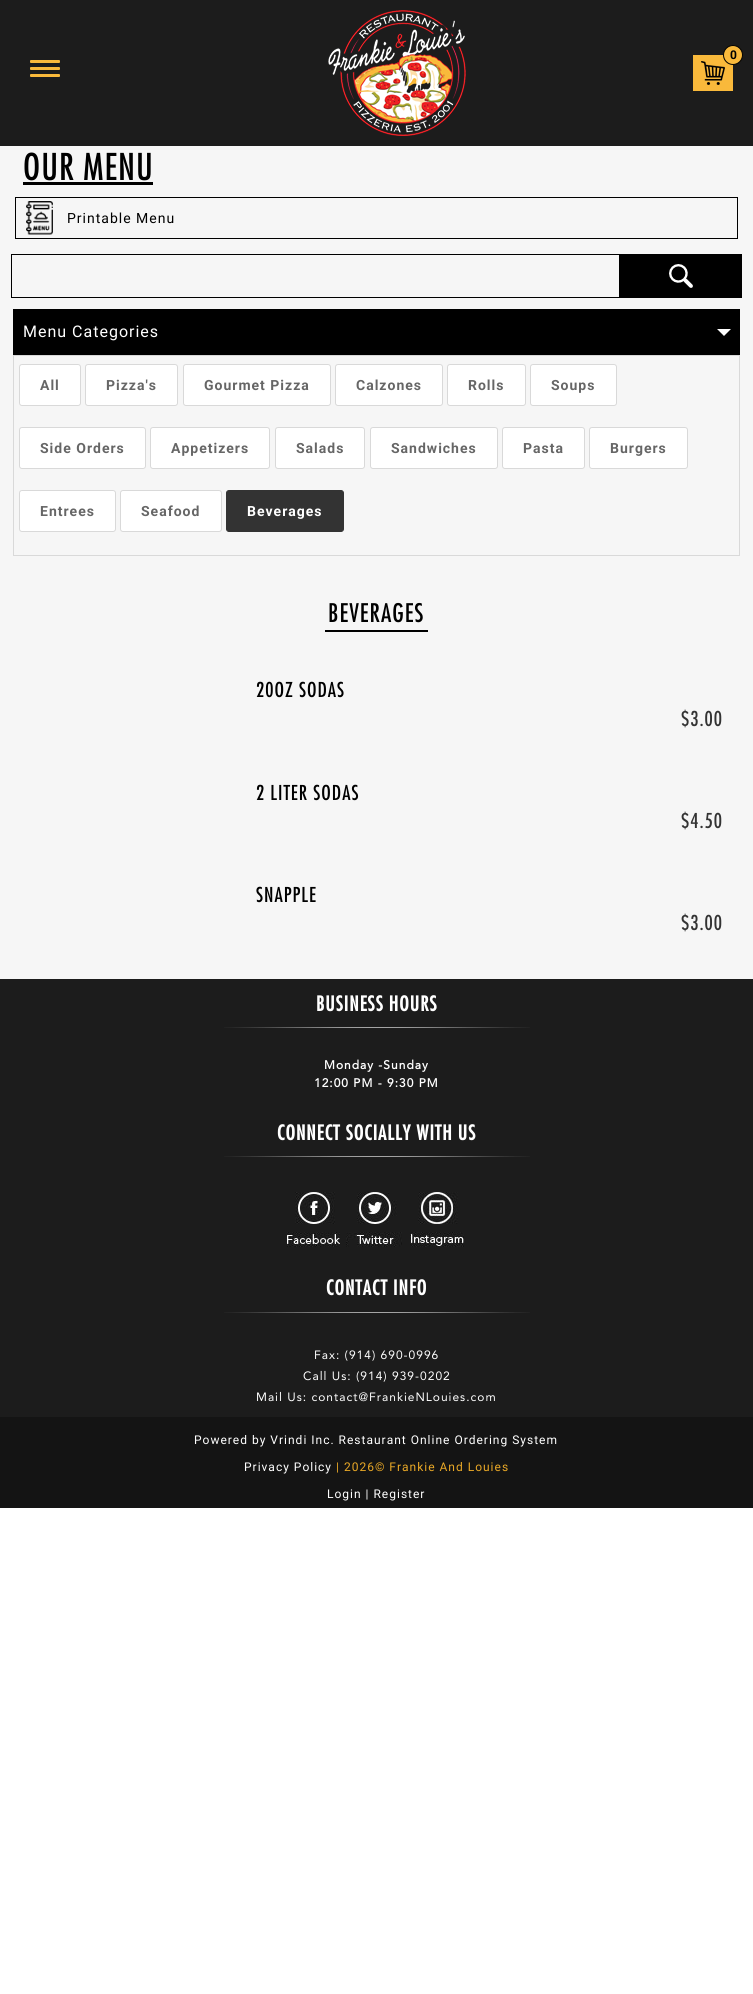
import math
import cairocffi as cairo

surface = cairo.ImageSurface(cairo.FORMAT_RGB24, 753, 1994)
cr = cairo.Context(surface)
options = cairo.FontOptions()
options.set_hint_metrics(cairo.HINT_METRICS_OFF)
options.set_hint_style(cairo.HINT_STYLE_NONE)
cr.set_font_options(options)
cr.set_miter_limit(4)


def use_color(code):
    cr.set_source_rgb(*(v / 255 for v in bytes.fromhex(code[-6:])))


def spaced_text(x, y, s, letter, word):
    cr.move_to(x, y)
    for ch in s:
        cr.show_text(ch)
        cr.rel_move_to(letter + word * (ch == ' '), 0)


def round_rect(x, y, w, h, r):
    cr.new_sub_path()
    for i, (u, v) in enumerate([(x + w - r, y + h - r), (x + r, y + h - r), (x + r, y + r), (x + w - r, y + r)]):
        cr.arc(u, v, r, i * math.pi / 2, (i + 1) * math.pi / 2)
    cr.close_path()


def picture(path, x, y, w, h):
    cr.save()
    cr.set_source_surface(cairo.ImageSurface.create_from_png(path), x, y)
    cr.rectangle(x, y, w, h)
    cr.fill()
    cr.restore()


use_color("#ffffff")
cr.paint()
use_color("#f6f6f6")
cr.rectangle(0, 146, 753, 833)
cr.fill()
use_color("#1c1c1c")
cr.rectangle(0, 0, 753, 146)
cr.fill()
picture("img1.png", 328, 10, 138, 126)
use_color("#f9b93b")
cr.rectangle(693, 55, 40, 36)
cr.fill()
picture("img2.png", 701, 61, 24, 24)
cr.arc(733, 55, 9.5, 0, 2 * math.pi)
cr.fill_preserve()
use_color("#000000")
cr.set_line_width(1)
cr.stroke()
cr.select_font_face("Roboto", cairo.FONT_SLANT_NORMAL, cairo.FONT_WEIGHT_BOLD)
cr.set_font_size(12)
spaced_text(730, 59, "0", 1, 0)
use_color("#f9b93b")
round_rect(30, 60, 30, 3, 1)
cr.fill()
round_rect(30, 67, 30, 3, 1)
cr.fill()
round_rect(30, 74, 30, 3, 1)
cr.fill()
cr.select_font_face("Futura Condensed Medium")
cr.set_font_size(36)
use_color("#000000")
spaced_text(23, 180, "OUR MENU", 1, 0)
cr.rectangle(23, 182, 130, 3)
cr.fill()
cr.rectangle(15.5, 197.5, 722, 41)
cr.stroke()
picture("img3.png", 26, 201, 27, 34)
cr.select_font_face("Roboto")
cr.set_font_size(14)
spaced_text(67, 223, "Printable Menu", 1, 0)
cr.rectangle(11.5, 254.5, 608, 43)
cr.stroke()
cr.rectangle(620, 254, 122, 44)
cr.fill()
picture("img4.png", 669, 264, 24, 24)
cr.rectangle(13, 309, 727, 46)
cr.fill()
cr.set_font_size(16)
use_color("#ffffff")
spaced_text(23, 337, "Menu Categories", 1, 0)
cr.new_path()
cr.move_to(717, 329)
cr.line_to(731, 329)
cr.line_to(724, 336)
cr.close_path()
cr.fill()
cr.rectangle(13.5, 355.5, 726, 200)
use_color("#d9d9d9")
cr.stroke()
use_color("#ffffff")
round_rect(19.5, 364.5, 61, 41, 2.5)
cr.fill_preserve()
use_color("#d9d9d9")
cr.stroke()
cr.select_font_face("Roboto", cairo.FONT_SLANT_NORMAL, cairo.FONT_WEIGHT_BOLD)
cr.set_font_size(14)
use_color("#666666")
spaced_text(40, 390, "All", 1, 0)
use_color("#ffffff")
round_rect(85.5, 364.5, 92, 41, 2.5)
cr.fill_preserve()
use_color("#d9d9d9")
cr.stroke()
use_color("#666666")
spaced_text(106, 390, "Pizza's", 1, 0)
use_color("#ffffff")
round_rect(183.5, 364.5, 147, 41, 2.5)
cr.fill_preserve()
use_color("#d9d9d9")
cr.stroke()
use_color("#666666")
spaced_text(204, 390, "Gourmet Pizza", 1, 0)
use_color("#ffffff")
round_rect(335.5, 364.5, 107, 41, 2.5)
cr.fill_preserve()
use_color("#d9d9d9")
cr.stroke()
use_color("#666666")
spaced_text(356, 390, "Calzones", 1, 0)
use_color("#ffffff")
round_rect(447.5, 364.5, 78, 41, 2.5)
cr.fill_preserve()
use_color("#d9d9d9")
cr.stroke()
use_color("#666666")
spaced_text(468, 390, "Rolls", 1, 0)
use_color("#ffffff")
round_rect(530.5, 364.5, 86, 41, 2.5)
cr.fill_preserve()
use_color("#d9d9d9")
cr.stroke()
use_color("#666666")
spaced_text(551, 390, "Soups", 1, 0)
use_color("#ffffff")
round_rect(19.5, 427.5, 126, 41, 2.5)
cr.fill_preserve()
use_color("#d9d9d9")
cr.stroke()
use_color("#666666")
spaced_text(40, 453, "Side Orders", 1, 0)
use_color("#ffffff")
round_rect(150.5, 427.5, 119, 41, 2.5)
cr.fill_preserve()
use_color("#d9d9d9")
cr.stroke()
use_color("#666666")
spaced_text(171, 453, "Appetizers", 1, 0)
use_color("#ffffff")
round_rect(275.5, 427.5, 89, 41, 2.5)
cr.fill_preserve()
use_color("#d9d9d9")
cr.stroke()
use_color("#666666")
spaced_text(296, 453, "Salads", 1, 0)
use_color("#ffffff")
round_rect(370.5, 427.5, 127, 41, 2.5)
cr.fill_preserve()
use_color("#d9d9d9")
cr.stroke()
use_color("#666666")
spaced_text(391, 453, "Sandwiches", 1, 0)
use_color("#ffffff")
round_rect(502.5, 427.5, 82, 41, 2.5)
cr.fill_preserve()
use_color("#d9d9d9")
cr.stroke()
use_color("#666666")
spaced_text(523, 453, "Pasta", 1, 0)
use_color("#ffffff")
round_rect(589.5, 427.5, 98, 41, 2.5)
cr.fill_preserve()
use_color("#d9d9d9")
cr.stroke()
use_color("#666666")
spaced_text(610, 453, "Burgers", 1, 0)
use_color("#ffffff")
round_rect(19.5, 490.5, 96, 41, 2.5)
cr.fill_preserve()
use_color("#d9d9d9")
cr.stroke()
use_color("#666666")
spaced_text(40, 516, "Entrees", 1, 0)
use_color("#ffffff")
round_rect(120.5, 490.5, 101, 41, 2.5)
cr.fill_preserve()
use_color("#d9d9d9")
cr.stroke()
use_color("#666666")
spaced_text(141, 516, "Seafood", 1, 0)
use_color("#333333")
round_rect(226.5, 490.5, 117, 41, 2.5)
cr.fill_preserve()
cr.stroke()
use_color("#ffffff")
spaced_text(247, 516, "Beverages", 1, 0)
cr.select_font_face("Futura Condensed Medium")
cr.set_font_size(25)
use_color("#000000")
spaced_text(328, 622, "BEVERAGES", 1, 0)
cr.rectangle(325, 630, 103, 2)
cr.fill()
cr.set_font_size(20)
spaced_text(256, 697, "20OZ SODAS", 1, 0)
use_color("#333333")
spaced_text(681, 726, "$3.00", 1, 0)
use_color("#000000")
spaced_text(256, 800, "2 LITER SODAS", 1, 0)
use_color("#333333")
spaced_text(681, 828, "$4.50", 1, 0)
use_color("#000000")
spaced_text(256, 902, "SNAPPLE", 1, 0)
use_color("#333333")
spaced_text(681, 930, "$3.00", 1, 0)
use_color("#1c1c1c")
cr.rectangle(0, 979, 753, 438)
cr.fill()
cr.select_font_face("Futura Condensed", cairo.FONT_SLANT_NORMAL, cairo.FONT_WEIGHT_BOLD)
use_color("#ffffff")
spaced_text(316, 1011, "BUSINESS HOURS", 1, 0)
picture("img5.png", 224, 1027, 306, 1)
cr.select_font_face("Avenir", cairo.FONT_SLANT_NORMAL, cairo.FONT_WEIGHT_BOLD)
cr.set_font_size(12)
spaced_text(324, 1069, "Monday -Sunday", 1, 0)
spaced_text(314, 1087, "12:00 PM - 9:30 PM", 1, 0)
cr.select_font_face("Futura Condensed", cairo.FONT_SLANT_NORMAL, cairo.FONT_WEIGHT_BOLD)
cr.set_font_size(20)
spaced_text(277, 1140, "CONNECT SOCIALLY WITH US", 1, 0)
picture("img5.png", 224, 1156, 306, 1)
picture("img6.png", 287, 1192, 53, 55)
picture("img7.png", 346, 1192, 56, 55)
picture("img8.png", 410, 1192, 54, 55)
spaced_text(326, 1295, "CONTACT INFO", 1, 0)
picture("img5.png", 224, 1312, 306, 1)
cr.select_font_face("Avenir")
cr.set_font_size(12)
spaced_text(314, 1359, "Fax: (914) 690-0996", 1, 0)
spaced_text(303, 1380, "Call Us: (914) 939-0202", 1, 0)
spaced_text(256, 1401, "Mail Us: contact@FrankieNLouies.com", 1, 0)
use_color("#141414")
cr.rectangle(0, 1417, 753, 91)
cr.fill()
cr.select_font_face("Roboto")
use_color("#ffffff")
spaced_text(194, 1444, "Powered by Vrindi Inc. Restaurant Online Ordering System", 1, 0)
spaced_text(244, 1471, "Privacy Policy", 1, 0)
use_color("#e9a826")
spaced_text(336, 1471, "| 2026© Frankie And Louies", 1, 0)
use_color("#ffffff")
spaced_text(327, 1498, "Login | Register", 1, 0)
surface.write_to_png("result.png")
